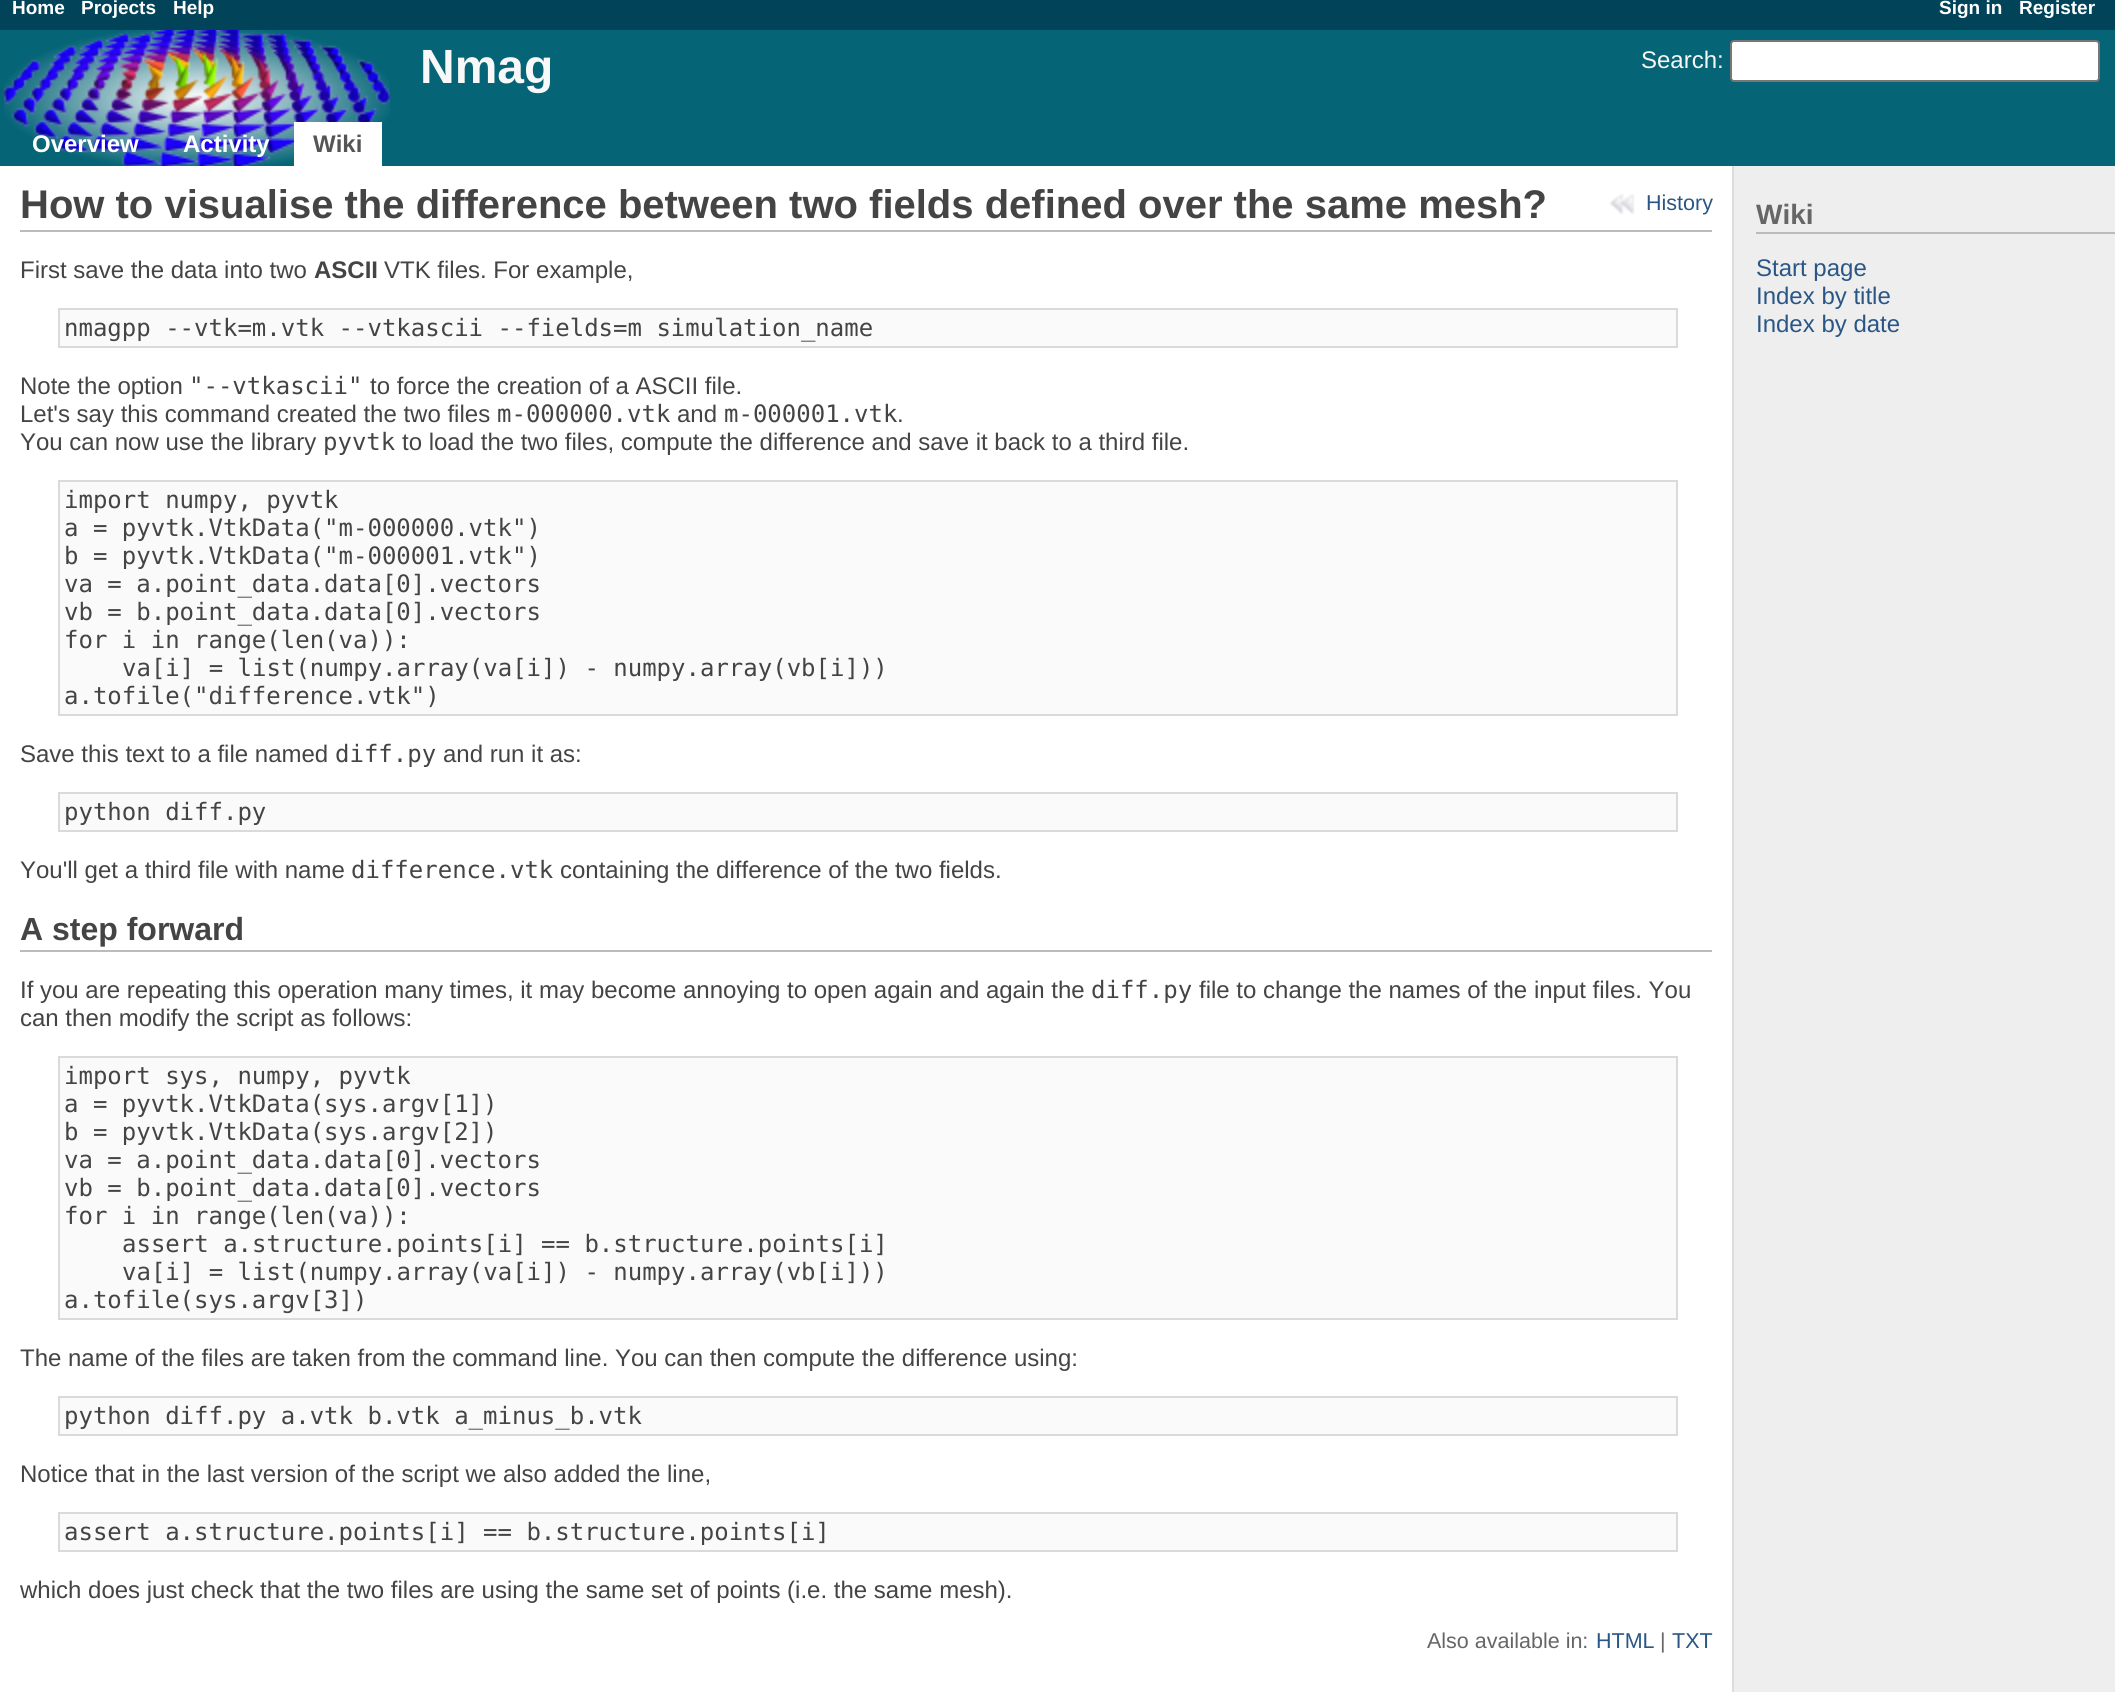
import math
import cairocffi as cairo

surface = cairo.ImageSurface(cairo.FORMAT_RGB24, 2115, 1692)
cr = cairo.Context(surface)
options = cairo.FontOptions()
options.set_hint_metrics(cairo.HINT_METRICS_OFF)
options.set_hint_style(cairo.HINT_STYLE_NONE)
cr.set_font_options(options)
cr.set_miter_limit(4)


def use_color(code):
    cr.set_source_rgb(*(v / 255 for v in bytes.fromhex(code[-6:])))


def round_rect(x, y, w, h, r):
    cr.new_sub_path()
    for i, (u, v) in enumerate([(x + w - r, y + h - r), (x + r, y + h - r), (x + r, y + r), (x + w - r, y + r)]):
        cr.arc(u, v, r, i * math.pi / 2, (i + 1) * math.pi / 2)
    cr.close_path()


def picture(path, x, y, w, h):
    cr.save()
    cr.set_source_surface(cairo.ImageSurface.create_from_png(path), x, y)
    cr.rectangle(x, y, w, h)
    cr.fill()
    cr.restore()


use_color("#014359")
cr.paint()
cr.select_font_face("Liberation Sans", cairo.FONT_SLANT_NORMAL, cairo.FONT_WEIGHT_BOLD)
cr.set_font_size(19)
use_color("#ffffff")
cr.move_to(12, 14)
cr.show_text("Home")
cr.move_to(81, 14)
cr.show_text("Projects")
cr.move_to(173, 14)
cr.show_text("Help")
cr.move_to(1939, 14)
cr.show_text("Sign in")
cr.move_to(2019, 14)
cr.show_text("Register")
use_color("#056576")
cr.rectangle(0, 30, 2115, 136)
cr.fill()
picture("img1.png", 4, 30, 386, 136)
cr.set_font_size(48)
use_color("#f8f8f8")
cr.move_to(420, 83)
cr.show_text("Nmag")
cr.select_font_face("Liberation Sans")
cr.set_font_size(24)
cr.move_to(1641, 68)
cr.show_text("Search:")
use_color("#ffffff")
round_rect(1731, 41, 368, 40, 3)
cr.fill_preserve()
use_color("#767676")
cr.stroke()
cr.select_font_face("Liberation Sans", cairo.FONT_SLANT_NORMAL, cairo.FONT_WEIGHT_BOLD)
use_color("#ffffff")
cr.move_to(32, 152)
cr.show_text("Overview")
cr.move_to(183, 152)
cr.show_text("Activity")
cr.rectangle(294, 122, 88, 44)
cr.fill()
use_color("#555555")
cr.move_to(313, 152)
cr.show_text("Wiki")
use_color("#eeeeee")
cr.rectangle(1734, 166, 381, 1526)
cr.fill()
use_color("#ffffff")
cr.rectangle(0, 166, 1732, 1526)
cr.fill()
use_color("#dddddd")
cr.rectangle(1732, 166, 2, 1526)
cr.fill()
use_color("#bbbbbb")
cr.rectangle(20, 230, 1692, 2)
cr.fill()
cr.set_font_size(40)
use_color("#444444")
cr.move_to(20, 218)
cr.show_text("How to visualise the difference between two fields defined over the same mesh?")
cr.select_font_face("Liberation Sans")
cr.set_font_size(24)
cr.move_to(20, 278)
cr.show_text("First save the data into two")
cr.select_font_face("Liberation Sans", cairo.FONT_SLANT_NORMAL, cairo.FONT_WEIGHT_BOLD)
cr.move_to(314, 278)
cr.show_text("ASCII")
cr.select_font_face("Liberation Sans")
cr.move_to(384, 278)
cr.show_text("VTK files. For example,")
use_color("#fafafa")
cr.rectangle(59, 309, 1618, 38)
cr.fill_preserve()
use_color("#dadada")
cr.stroke()
cr.select_font_face("DejaVu Sans Mono")
use_color("#444444")
cr.move_to(64, 336)
cr.show_text("nmagpp --vtk=m.vtk --vtkascii --fields=m simulation_name")
cr.select_font_face("Liberation Sans")
cr.move_to(20, 394)
cr.show_text("Note the option")
cr.select_font_face("DejaVu Sans Mono")
cr.move_to(189, 394)
cr.show_text("\"--vtkascii\"")
cr.select_font_face("Liberation Sans")
cr.move_to(370, 394)
cr.show_text("to force the creation of a ASCII file.")
cr.move_to(20, 422)
cr.show_text("Let's say this command created the two files")
cr.select_font_face("DejaVu Sans Mono")
cr.move_to(497, 422)
cr.show_text("m-000000.vtk")
cr.select_font_face("Liberation Sans")
cr.move_to(677, 422)
cr.show_text("and")
cr.select_font_face("DejaVu Sans Mono")
cr.move_to(724, 422)
cr.show_text("m-000001.vtk")
cr.select_font_face("Liberation Sans")
cr.move_to(897, 422)
cr.show_text(".")
cr.move_to(20, 450)
cr.show_text("You can now use the library")
cr.select_font_face("DejaVu Sans Mono")
cr.move_to(323, 450)
cr.show_text("pyvtk")
cr.select_font_face("Liberation Sans")
cr.move_to(402, 450)
cr.show_text("to load the two files, compute the difference and save it back to a third file.")
use_color("#fafafa")
cr.rectangle(59, 481, 1618, 234)
cr.fill_preserve()
use_color("#dadada")
cr.stroke()
cr.select_font_face("DejaVu Sans Mono")
use_color("#444444")
cr.move_to(64, 508)
cr.show_text("import numpy, pyvtk")
cr.move_to(64, 536)
cr.show_text("a = pyvtk.VtkData(\"m-000000.vtk\")")
cr.move_to(64, 564)
cr.show_text("b = pyvtk.VtkData(\"m-000001.vtk\")")
cr.move_to(64, 592)
cr.show_text("va = a.point_data.data[0].vectors")
cr.move_to(64, 620)
cr.show_text("vb = b.point_data.data[0].vectors")
cr.move_to(64, 648)
cr.show_text("for i in range(len(va)):")
cr.move_to(122, 676)
cr.show_text("va[i] = list(numpy.array(va[i]) - numpy.array(vb[i]))")
cr.move_to(64, 704)
cr.show_text("a.tofile(\"difference.vtk\")")
cr.select_font_face("Liberation Sans")
cr.move_to(20, 762)
cr.show_text("Save this text to a file named")
cr.select_font_face("DejaVu Sans Mono")
cr.move_to(335, 762)
cr.show_text("diff.py")
cr.select_font_face("Liberation Sans")
cr.move_to(443, 762)
cr.show_text("and run it as:")
use_color("#fafafa")
cr.rectangle(59, 793, 1618, 38)
cr.fill_preserve()
use_color("#dadada")
cr.stroke()
cr.select_font_face("DejaVu Sans Mono")
use_color("#444444")
cr.move_to(64, 820)
cr.show_text("python diff.py")
cr.select_font_face("Liberation Sans")
cr.move_to(20, 878)
cr.show_text("You'll get a third file with name")
cr.select_font_face("DejaVu Sans Mono")
cr.move_to(351, 878)
cr.show_text("difference.vtk")
cr.select_font_face("Liberation Sans")
cr.move_to(560, 878)
cr.show_text("containing the difference of the two fields.")
use_color("#bbbbbb")
cr.rectangle(20, 950, 1692, 2)
cr.fill()
cr.select_font_face("Liberation Sans", cairo.FONT_SLANT_NORMAL, cairo.FONT_WEIGHT_BOLD)
cr.set_font_size(32)
use_color("#444444")
cr.move_to(20, 940)
cr.show_text("A step forward")
cr.select_font_face("Liberation Sans")
cr.set_font_size(24)
cr.move_to(20, 998)
cr.show_text("If you are repeating this operation many times, it may become annoying to open again and again the")
cr.select_font_face("DejaVu Sans Mono")
cr.move_to(1091, 998)
cr.show_text("diff.py")
cr.select_font_face("Liberation Sans")
cr.move_to(1199, 998)
cr.show_text("file to change the names of the input files. You")
cr.move_to(20, 1026)
cr.show_text("can then modify the script as follows:")
use_color("#fafafa")
cr.rectangle(59, 1057, 1618, 262)
cr.fill_preserve()
use_color("#dadada")
cr.stroke()
cr.select_font_face("DejaVu Sans Mono")
use_color("#444444")
cr.move_to(64, 1084)
cr.show_text("import sys, numpy, pyvtk")
cr.move_to(64, 1112)
cr.show_text("a = pyvtk.VtkData(sys.argv[1])")
cr.move_to(64, 1140)
cr.show_text("b = pyvtk.VtkData(sys.argv[2])")
cr.move_to(64, 1168)
cr.show_text("va = a.point_data.data[0].vectors")
cr.move_to(64, 1196)
cr.show_text("vb = b.point_data.data[0].vectors")
cr.move_to(64, 1224)
cr.show_text("for i in range(len(va)):")
cr.move_to(122, 1252)
cr.show_text("assert a.structure.points[i] == b.structure.points[i]")
cr.move_to(122, 1280)
cr.show_text("va[i] = list(numpy.array(va[i]) - numpy.array(vb[i]))")
cr.move_to(64, 1308)
cr.show_text("a.tofile(sys.argv[3])")
cr.select_font_face("Liberation Sans")
cr.move_to(20, 1366)
cr.show_text("The name of the files are taken from the command line. You can then compute the difference using:")
use_color("#fafafa")
cr.rectangle(59, 1397, 1618, 38)
cr.fill_preserve()
use_color("#dadada")
cr.stroke()
cr.select_font_face("DejaVu Sans Mono")
use_color("#444444")
cr.move_to(64, 1424)
cr.show_text("python diff.py a.vtk b.vtk a_minus_b.vtk")
cr.select_font_face("Liberation Sans")
cr.move_to(20, 1482)
cr.show_text("Notice that in the last version of the script we also added the line,")
use_color("#fafafa")
cr.rectangle(59, 1513, 1618, 38)
cr.fill_preserve()
use_color("#dadada")
cr.stroke()
cr.select_font_face("DejaVu Sans Mono")
use_color("#444444")
cr.move_to(64, 1540)
cr.show_text("assert a.structure.points[i] == b.structure.points[i]")
cr.select_font_face("Liberation Sans")
cr.move_to(20, 1598)
cr.show_text("which does just check that the two files are using the same set of points (i.e. the same mesh).")
picture("img2.png", 1609, 194, 26, 21)
cr.set_font_size(21.5)
use_color("#2a5685")
cr.move_to(1646, 210)
cr.show_text("History")
use_color("#666666")
cr.move_to(1427, 1648)
cr.show_text("Also available in:")
use_color("#2a5685")
cr.move_to(1596, 1648)
cr.show_text("HTML")
use_color("#666666")
cr.move_to(1660, 1648)
cr.show_text("|")
use_color("#2a5685")
cr.move_to(1672, 1648)
cr.show_text("TXT")
use_color("#bbbbbb")
cr.rectangle(1756, 232, 359, 2)
cr.fill()
cr.select_font_face("Liberation Sans", cairo.FONT_SLANT_NORMAL, cairo.FONT_WEIGHT_BOLD)
cr.set_font_size(28)
use_color("#666666")
cr.move_to(1756, 224)
cr.show_text("Wiki")
cr.select_font_face("Liberation Sans")
cr.set_font_size(24)
use_color("#2a5685")
cr.move_to(1756, 276)
cr.show_text("Start page")
cr.move_to(1756, 304)
cr.show_text("Index by title")
cr.move_to(1756, 332)
cr.show_text("Index by date")
surface.write_to_png("result.png")
